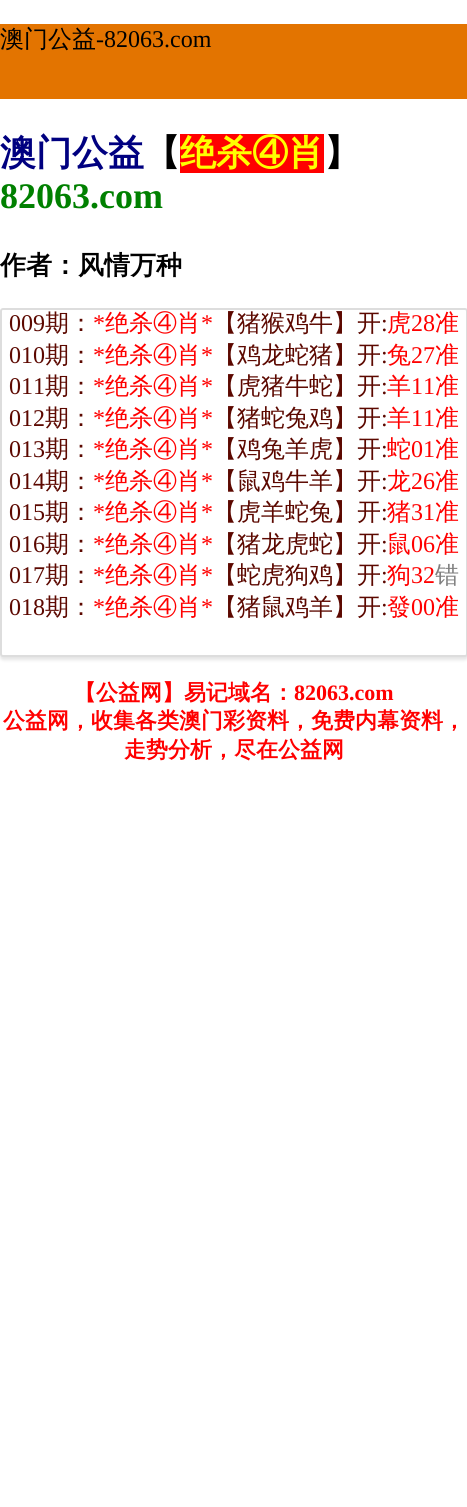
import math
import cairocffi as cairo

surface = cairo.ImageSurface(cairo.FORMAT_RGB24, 467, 1507)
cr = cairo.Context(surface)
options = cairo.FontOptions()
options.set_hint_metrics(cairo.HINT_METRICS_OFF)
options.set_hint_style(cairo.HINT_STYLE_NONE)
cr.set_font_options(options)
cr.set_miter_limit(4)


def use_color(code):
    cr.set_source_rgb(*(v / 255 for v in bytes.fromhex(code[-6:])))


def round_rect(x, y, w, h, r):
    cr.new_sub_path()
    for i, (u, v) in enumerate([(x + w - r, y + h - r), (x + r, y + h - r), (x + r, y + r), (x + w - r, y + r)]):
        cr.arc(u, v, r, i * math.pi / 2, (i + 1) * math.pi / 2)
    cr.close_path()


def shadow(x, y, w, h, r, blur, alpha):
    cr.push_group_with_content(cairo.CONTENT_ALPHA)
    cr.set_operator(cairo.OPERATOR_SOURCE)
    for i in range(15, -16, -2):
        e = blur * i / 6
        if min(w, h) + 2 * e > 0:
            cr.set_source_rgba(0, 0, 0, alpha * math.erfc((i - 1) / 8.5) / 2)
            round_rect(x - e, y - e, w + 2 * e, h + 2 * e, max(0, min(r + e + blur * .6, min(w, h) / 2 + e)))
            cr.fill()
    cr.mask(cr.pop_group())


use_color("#ffffff")
cr.paint()
use_color("#e37400")
cr.rectangle(0, 24, 467, 75)
cr.fill()
cr.select_font_face("WenQuanYi Zen Hei Medium")
cr.set_font_size(24)
use_color("#000000")
cr.move_to(0, 47)
cr.show_text("澳门公益")
cr.select_font_face("Liberation Serif")
cr.move_to(96, 47)
cr.show_text("-82063.com")
cr.select_font_face("WenQuanYi Zen Hei", cairo.FONT_SLANT_NORMAL, cairo.FONT_WEIGHT_BOLD)
cr.set_font_size(36)
use_color("#000080")
cr.move_to(0, 165)
cr.show_text("澳门公益")
use_color("#000000")
cr.move_to(144, 165)
cr.show_text("【")
use_color("#ff0000")
cr.rectangle(180, 134, 144, 39)
cr.fill()
use_color("#ffff00")
cr.move_to(180, 165)
cr.show_text("绝杀④肖")
use_color("#000000")
cr.move_to(324, 165)
cr.show_text("】")
cr.select_font_face("Liberation Serif", cairo.FONT_SLANT_NORMAL, cairo.FONT_WEIGHT_BOLD)
use_color("#008000")
cr.move_to(0, 208)
cr.show_text("82063.com")
cr.select_font_face("WenQuanYi Zen Hei", cairo.FONT_SLANT_NORMAL, cairo.FONT_WEIGHT_BOLD)
cr.set_font_size(26)
use_color("#000000")
cr.move_to(0, 274)
cr.show_text("作者：风情万种")
use_color("#000000")
shadow(0, 311, 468, 349, 3, 1.5, 0.1)
use_color("#ffffff")
round_rect(1, 309, 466, 347, 2)
cr.fill_preserve()
use_color("#dddddd")
cr.stroke()
cr.select_font_face("Liberation Serif")
cr.set_font_size(24)
use_color("#5c0800")
cr.move_to(9, 331)
cr.show_text("009")
cr.select_font_face("WenQuanYi Zen Hei Medium")
cr.move_to(45, 331)
cr.show_text("期：")
cr.select_font_face("Liberation Serif")
use_color("#ff0000")
cr.move_to(93, 331)
cr.show_text("*")
cr.select_font_face("WenQuanYi Zen Hei Medium")
cr.move_to(105, 331)
cr.show_text("绝杀④肖")
cr.select_font_face("Liberation Serif")
cr.move_to(201, 331)
cr.show_text("*")
cr.select_font_face("WenQuanYi Zen Hei Medium")
use_color("#5c0800")
cr.move_to(213, 331)
cr.show_text("【猪猴鸡牛】开")
cr.select_font_face("Liberation Serif")
cr.move_to(381, 331)
cr.show_text(":")
cr.select_font_face("WenQuanYi Zen Hei Medium")
use_color("#ff0000")
cr.move_to(387, 331)
cr.show_text("虎")
cr.select_font_face("Liberation Serif")
cr.move_to(411, 331)
cr.show_text("28")
cr.select_font_face("WenQuanYi Zen Hei Medium")
cr.move_to(435, 331)
cr.show_text("准")
cr.select_font_face("Liberation Serif")
use_color("#5c0800")
cr.move_to(9, 363)
cr.show_text("010")
cr.select_font_face("WenQuanYi Zen Hei Medium")
cr.move_to(45, 363)
cr.show_text("期：")
cr.select_font_face("Liberation Serif")
use_color("#ff0000")
cr.move_to(93, 363)
cr.show_text("*")
cr.select_font_face("WenQuanYi Zen Hei Medium")
cr.move_to(105, 363)
cr.show_text("绝杀④肖")
cr.select_font_face("Liberation Serif")
cr.move_to(201, 363)
cr.show_text("*")
cr.select_font_face("WenQuanYi Zen Hei Medium")
use_color("#5c0800")
cr.move_to(213, 363)
cr.show_text("【鸡龙蛇猪】开")
cr.select_font_face("Liberation Serif")
cr.move_to(381, 363)
cr.show_text(":")
cr.select_font_face("WenQuanYi Zen Hei Medium")
use_color("#ff0000")
cr.move_to(387, 363)
cr.show_text("兔")
cr.select_font_face("Liberation Serif")
cr.move_to(411, 363)
cr.show_text("27")
cr.select_font_face("WenQuanYi Zen Hei Medium")
cr.move_to(435, 363)
cr.show_text("准")
cr.select_font_face("Liberation Serif")
use_color("#5c0800")
cr.move_to(9, 394)
cr.show_text("011")
cr.select_font_face("WenQuanYi Zen Hei Medium")
cr.move_to(45, 394)
cr.show_text("期：")
cr.select_font_face("Liberation Serif")
use_color("#ff0000")
cr.move_to(93, 394)
cr.show_text("*")
cr.select_font_face("WenQuanYi Zen Hei Medium")
cr.move_to(105, 394)
cr.show_text("绝杀④肖")
cr.select_font_face("Liberation Serif")
cr.move_to(201, 394)
cr.show_text("*")
cr.select_font_face("WenQuanYi Zen Hei Medium")
use_color("#5c0800")
cr.move_to(213, 394)
cr.show_text("【虎猪牛蛇】开")
cr.select_font_face("Liberation Serif")
cr.move_to(381, 394)
cr.show_text(":")
cr.select_font_face("WenQuanYi Zen Hei Medium")
use_color("#ff0000")
cr.move_to(387, 394)
cr.show_text("羊")
cr.select_font_face("Liberation Serif")
cr.move_to(411, 394)
cr.show_text("11")
cr.select_font_face("WenQuanYi Zen Hei Medium")
cr.move_to(435, 394)
cr.show_text("准")
cr.select_font_face("Liberation Serif")
use_color("#5c0800")
cr.move_to(9, 426)
cr.show_text("012")
cr.select_font_face("WenQuanYi Zen Hei Medium")
cr.move_to(45, 426)
cr.show_text("期：")
cr.select_font_face("Liberation Serif")
use_color("#ff0000")
cr.move_to(93, 426)
cr.show_text("*")
cr.select_font_face("WenQuanYi Zen Hei Medium")
cr.move_to(105, 426)
cr.show_text("绝杀④肖")
cr.select_font_face("Liberation Serif")
cr.move_to(201, 426)
cr.show_text("*")
cr.select_font_face("WenQuanYi Zen Hei Medium")
use_color("#5c0800")
cr.move_to(213, 426)
cr.show_text("【猪蛇兔鸡】开")
cr.select_font_face("Liberation Serif")
cr.move_to(381, 426)
cr.show_text(":")
cr.select_font_face("WenQuanYi Zen Hei Medium")
use_color("#ff0000")
cr.move_to(387, 426)
cr.show_text("羊")
cr.select_font_face("Liberation Serif")
cr.move_to(411, 426)
cr.show_text("11")
cr.select_font_face("WenQuanYi Zen Hei Medium")
cr.move_to(435, 426)
cr.show_text("准")
cr.select_font_face("Liberation Serif")
use_color("#5c0800")
cr.move_to(9, 457)
cr.show_text("013")
cr.select_font_face("WenQuanYi Zen Hei Medium")
cr.move_to(45, 457)
cr.show_text("期：")
cr.select_font_face("Liberation Serif")
use_color("#ff0000")
cr.move_to(93, 457)
cr.show_text("*")
cr.select_font_face("WenQuanYi Zen Hei Medium")
cr.move_to(105, 457)
cr.show_text("绝杀④肖")
cr.select_font_face("Liberation Serif")
cr.move_to(201, 457)
cr.show_text("*")
cr.select_font_face("WenQuanYi Zen Hei Medium")
use_color("#5c0800")
cr.move_to(213, 457)
cr.show_text("【鸡兔羊虎】开")
cr.select_font_face("Liberation Serif")
cr.move_to(381, 457)
cr.show_text(":")
cr.select_font_face("WenQuanYi Zen Hei Medium")
use_color("#ff0000")
cr.move_to(387, 457)
cr.show_text("蛇")
cr.select_font_face("Liberation Serif")
cr.move_to(411, 457)
cr.show_text("01")
cr.select_font_face("WenQuanYi Zen Hei Medium")
cr.move_to(435, 457)
cr.show_text("准")
cr.select_font_face("Liberation Serif")
use_color("#5c0800")
cr.move_to(9, 489)
cr.show_text("014")
cr.select_font_face("WenQuanYi Zen Hei Medium")
cr.move_to(45, 489)
cr.show_text("期：")
cr.select_font_face("Liberation Serif")
use_color("#ff0000")
cr.move_to(93, 489)
cr.show_text("*")
cr.select_font_face("WenQuanYi Zen Hei Medium")
cr.move_to(105, 489)
cr.show_text("绝杀④肖")
cr.select_font_face("Liberation Serif")
cr.move_to(201, 489)
cr.show_text("*")
cr.select_font_face("WenQuanYi Zen Hei Medium")
use_color("#5c0800")
cr.move_to(213, 489)
cr.show_text("【鼠鸡牛羊】开")
cr.select_font_face("Liberation Serif")
cr.move_to(381, 489)
cr.show_text(":")
cr.select_font_face("WenQuanYi Zen Hei Medium")
use_color("#ff0000")
cr.move_to(387, 489)
cr.show_text("龙")
cr.select_font_face("Liberation Serif")
cr.move_to(411, 489)
cr.show_text("26")
cr.select_font_face("WenQuanYi Zen Hei Medium")
cr.move_to(435, 489)
cr.show_text("准")
cr.select_font_face("Liberation Serif")
use_color("#5c0800")
cr.move_to(9, 520)
cr.show_text("015")
cr.select_font_face("WenQuanYi Zen Hei Medium")
cr.move_to(45, 520)
cr.show_text("期：")
cr.select_font_face("Liberation Serif")
use_color("#ff0000")
cr.move_to(93, 520)
cr.show_text("*")
cr.select_font_face("WenQuanYi Zen Hei Medium")
cr.move_to(105, 520)
cr.show_text("绝杀④肖")
cr.select_font_face("Liberation Serif")
cr.move_to(201, 520)
cr.show_text("*")
cr.select_font_face("WenQuanYi Zen Hei Medium")
use_color("#5c0800")
cr.move_to(213, 520)
cr.show_text("【虎羊蛇兔】开")
cr.select_font_face("Liberation Serif")
cr.move_to(381, 520)
cr.show_text(":")
cr.select_font_face("WenQuanYi Zen Hei Medium")
use_color("#ff0000")
cr.move_to(387, 520)
cr.show_text("猪")
cr.select_font_face("Liberation Serif")
cr.move_to(411, 520)
cr.show_text("31")
cr.select_font_face("WenQuanYi Zen Hei Medium")
cr.move_to(435, 520)
cr.show_text("准")
cr.select_font_face("Liberation Serif")
use_color("#5c0800")
cr.move_to(9, 552)
cr.show_text("016")
cr.select_font_face("WenQuanYi Zen Hei Medium")
cr.move_to(45, 552)
cr.show_text("期：")
cr.select_font_face("Liberation Serif")
use_color("#ff0000")
cr.move_to(93, 552)
cr.show_text("*")
cr.select_font_face("WenQuanYi Zen Hei Medium")
cr.move_to(105, 552)
cr.show_text("绝杀④肖")
cr.select_font_face("Liberation Serif")
cr.move_to(201, 552)
cr.show_text("*")
cr.select_font_face("WenQuanYi Zen Hei Medium")
use_color("#5c0800")
cr.move_to(213, 552)
cr.show_text("【猪龙虎蛇】开")
cr.select_font_face("Liberation Serif")
cr.move_to(381, 552)
cr.show_text(":")
cr.select_font_face("WenQuanYi Zen Hei Medium")
use_color("#ff0000")
cr.move_to(387, 552)
cr.show_text("鼠")
cr.select_font_face("Liberation Serif")
cr.move_to(411, 552)
cr.show_text("06")
cr.select_font_face("WenQuanYi Zen Hei Medium")
cr.move_to(435, 552)
cr.show_text("准")
cr.select_font_face("Liberation Serif")
use_color("#5c0800")
cr.move_to(9, 583)
cr.show_text("017")
cr.select_font_face("WenQuanYi Zen Hei Medium")
cr.move_to(45, 583)
cr.show_text("期：")
cr.select_font_face("Liberation Serif")
use_color("#ff0000")
cr.move_to(93, 583)
cr.show_text("*")
cr.select_font_face("WenQuanYi Zen Hei Medium")
cr.move_to(105, 583)
cr.show_text("绝杀④肖")
cr.select_font_face("Liberation Serif")
cr.move_to(201, 583)
cr.show_text("*")
cr.select_font_face("WenQuanYi Zen Hei Medium")
use_color("#5c0800")
cr.move_to(213, 583)
cr.show_text("【蛇虎狗鸡】开")
cr.select_font_face("Liberation Serif")
cr.move_to(381, 583)
cr.show_text(":")
cr.select_font_face("WenQuanYi Zen Hei Medium")
use_color("#ff0000")
cr.move_to(387, 583)
cr.show_text("狗")
cr.select_font_face("Liberation Serif")
cr.move_to(411, 583)
cr.show_text("32")
cr.select_font_face("WenQuanYi Zen Hei Medium")
use_color("#808080")
cr.move_to(435, 583)
cr.show_text("错")
cr.select_font_face("Liberation Serif")
use_color("#5c0800")
cr.move_to(9, 615)
cr.show_text("018")
cr.select_font_face("WenQuanYi Zen Hei Medium")
cr.move_to(45, 615)
cr.show_text("期：")
cr.select_font_face("Liberation Serif")
use_color("#ff0000")
cr.move_to(93, 615)
cr.show_text("*")
cr.select_font_face("WenQuanYi Zen Hei Medium")
cr.move_to(105, 615)
cr.show_text("绝杀④肖")
cr.select_font_face("Liberation Serif")
cr.move_to(201, 615)
cr.show_text("*")
cr.select_font_face("WenQuanYi Zen Hei Medium")
use_color("#5c0800")
cr.move_to(213, 615)
cr.show_text("【猪鼠鸡羊】开")
cr.select_font_face("Liberation Serif")
cr.move_to(381, 615)
cr.show_text(":")
cr.select_font_face("WenQuanYi Zen Hei Medium")
use_color("#ff0000")
cr.move_to(387, 615)
cr.show_text("發")
cr.select_font_face("Liberation Serif")
cr.move_to(411, 615)
cr.show_text("00")
cr.select_font_face("WenQuanYi Zen Hei Medium")
cr.move_to(435, 615)
cr.show_text("准")
cr.select_font_face("WenQuanYi Zen Hei", cairo.FONT_SLANT_NORMAL, cairo.FONT_WEIGHT_BOLD)
cr.set_font_size(22)
cr.move_to(74, 700)
cr.show_text("【公益网】易记域名：")
cr.select_font_face("Liberation Serif", cairo.FONT_SLANT_NORMAL, cairo.FONT_WEIGHT_BOLD)
cr.move_to(294, 700)
cr.show_text("82063.com")
cr.select_font_face("WenQuanYi Zen Hei", cairo.FONT_SLANT_NORMAL, cairo.FONT_WEIGHT_BOLD)
cr.move_to(3, 728)
cr.show_text("公益网，收集各类澳门彩资料，免费内幕资料，")
cr.move_to(124, 757)
cr.show_text("走势分析，尽在公益网")
surface.write_to_png("result.png")
